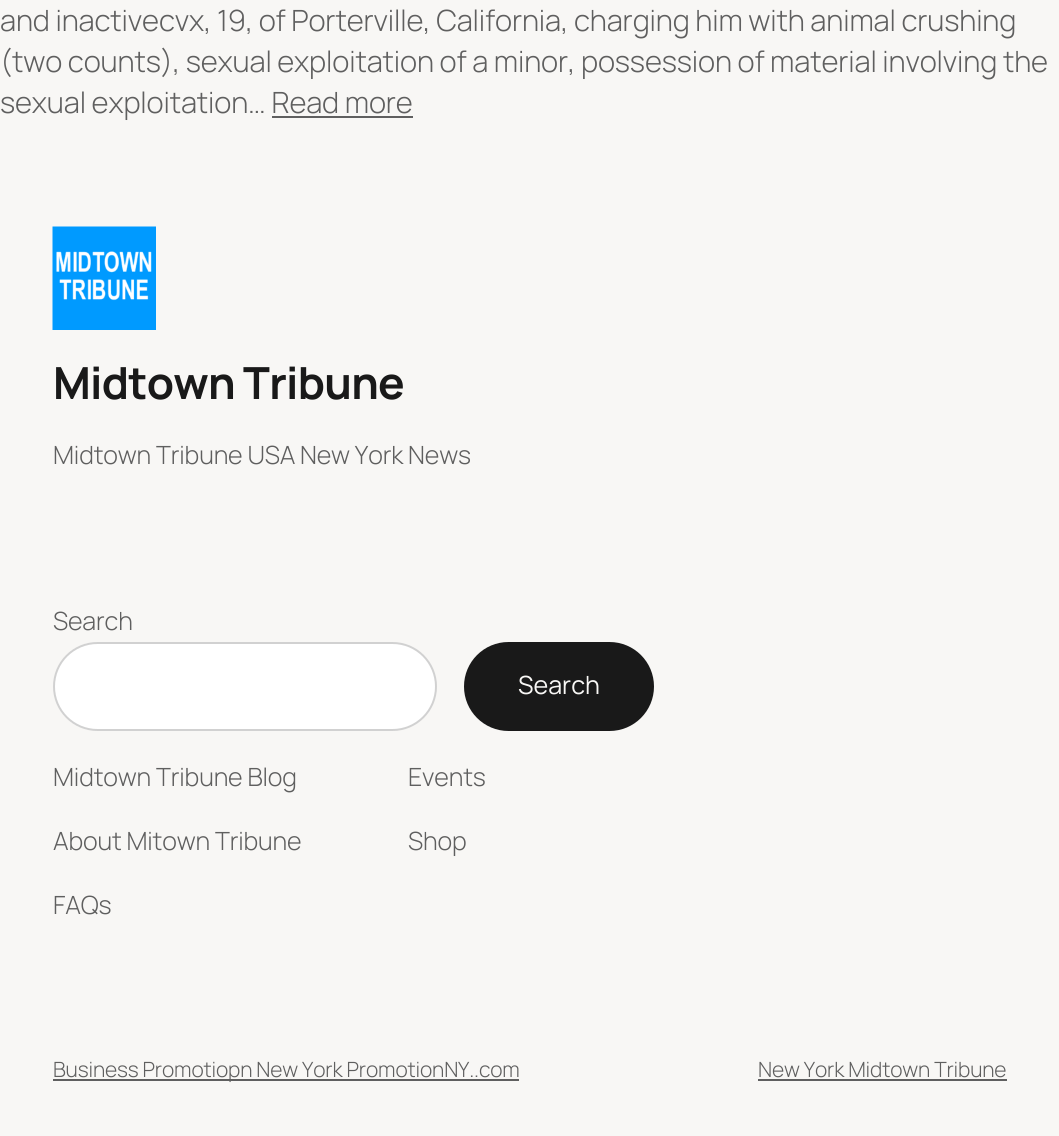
import math
import cairocffi as cairo

surface = cairo.ImageSurface(cairo.FORMAT_RGB24, 1059, 1136)
cr = cairo.Context(surface)
options = cairo.FontOptions()
options.set_hint_metrics(cairo.HINT_METRICS_OFF)
options.set_hint_style(cairo.HINT_STYLE_NONE)
cr.set_font_options(options)
cr.set_miter_limit(4)


def use_color(code):
    cr.set_source_rgb(*(v / 255 for v in bytes.fromhex(code[-6:])))


def spaced_text(x, y, s, letter, word):
    cr.move_to(x, y)
    for ch in s:
        cr.show_text(ch)
        cr.rel_move_to(letter + word * (ch == ' '), 0)


def round_rect(x, y, w, h, r):
    cr.new_sub_path()
    for i, (u, v) in enumerate([(x + w - r, y + h - r), (x + r, y + h - r), (x + r, y + r), (x + w - r, y + r)]):
        cr.arc(u, v, r, i * math.pi / 2, (i + 1) * math.pi / 2)
    cr.close_path()


def picture(path, x, y, w, h):
    cr.save()
    cr.set_source_surface(cairo.ImageSurface.create_from_png(path), x, y)
    cr.rectangle(x, y, w, h)
    cr.fill()
    cr.restore()


use_color("#f8f7f5")
cr.paint()
cr.select_font_face("Manrope Light")
cr.set_font_size(29.25)
use_color("#5f5f5f")
spaced_text(0, 31, "and inactivecvx, 19, of Porterville, California, charging him with animal crushing", -0.15, 0)
spaced_text(0, 72, "(two counts), sexual exploitation of a minor, possession of material involving the", -0.15, 0)
spaced_text(0, 113, "sexual exploitation… Read more", -0.15, 0)
cr.rectangle(272, 116, 141, 2)
cr.fill()
picture("img1.png", 52, 226, 104, 104)
cr.select_font_face("Manrope", cairo.FONT_SLANT_NORMAL, cairo.FONT_WEIGHT_BOLD)
cr.set_font_size(44.25)
use_color("#191919")
spaced_text(53, 399, "Midtown Tribune", -0.75, 0)
cr.select_font_face("Manrope Light")
cr.set_font_size(25.1)
use_color("#5f5f5f")
spaced_text(53, 464, "Midtown Tribune USA New York News", -0.15, 0)
spaced_text(53, 630, "Search", -0.15, 0)
use_color("#ffffff")
round_rect(53, 642, 384, 89, 44.5)
cr.fill()
round_rect(54, 643, 382, 87, 43.5)
cr.set_source_rgba(0.098, 0.098, 0.098, 0.2)
cr.stroke()
use_color("#191919")
round_rect(464, 642, 190, 89, 44.5)
cr.fill()
cr.select_font_face("Manrope")
use_color("#f8f7f5")
cr.move_to(518, 694)
cr.show_text("Search")
cr.select_font_face("Manrope Light")
use_color("#5f5f5f")
spaced_text(53, 786, "Midtown Tribune Blog", -0.15, 0)
spaced_text(53, 850, "About Mitown Tribune", -0.15, 0)
spaced_text(53, 914, "FAQs", -0.15, 0)
spaced_text(408, 786, "Events", -0.15, 0)
spaced_text(408, 850, "Shop", -0.15, 0)
cr.rectangle(53, 1079, 466, 2)
cr.fill()
cr.set_font_size(21)
spaced_text(53, 1077, "Business Promotiopn New York PromotionNY..com", -0.15, 0)
spaced_text(758, 1077, "New York Midtown Tribune", -0.15, 0)
cr.rectangle(758, 1079, 249, 2)
cr.fill()
surface.write_to_png("result.png")
